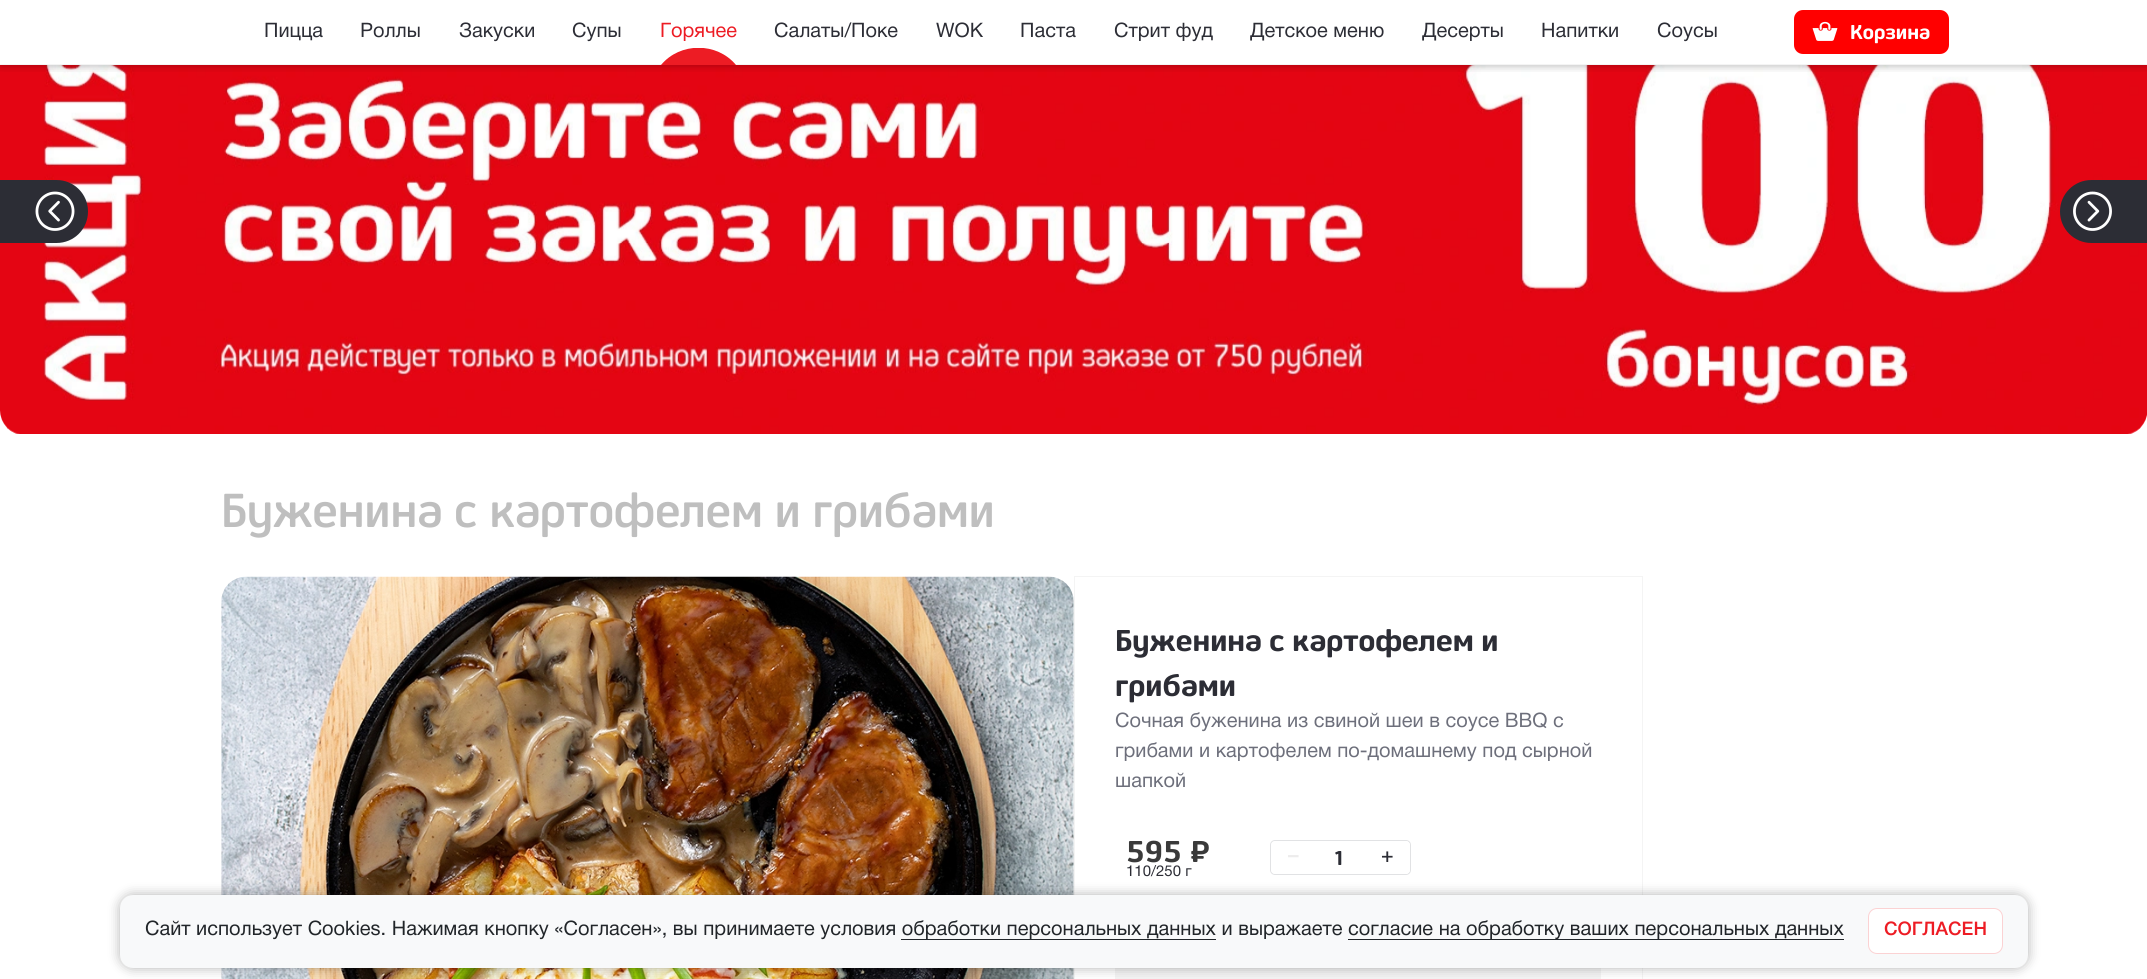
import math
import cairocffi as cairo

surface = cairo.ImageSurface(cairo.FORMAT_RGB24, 2147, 979)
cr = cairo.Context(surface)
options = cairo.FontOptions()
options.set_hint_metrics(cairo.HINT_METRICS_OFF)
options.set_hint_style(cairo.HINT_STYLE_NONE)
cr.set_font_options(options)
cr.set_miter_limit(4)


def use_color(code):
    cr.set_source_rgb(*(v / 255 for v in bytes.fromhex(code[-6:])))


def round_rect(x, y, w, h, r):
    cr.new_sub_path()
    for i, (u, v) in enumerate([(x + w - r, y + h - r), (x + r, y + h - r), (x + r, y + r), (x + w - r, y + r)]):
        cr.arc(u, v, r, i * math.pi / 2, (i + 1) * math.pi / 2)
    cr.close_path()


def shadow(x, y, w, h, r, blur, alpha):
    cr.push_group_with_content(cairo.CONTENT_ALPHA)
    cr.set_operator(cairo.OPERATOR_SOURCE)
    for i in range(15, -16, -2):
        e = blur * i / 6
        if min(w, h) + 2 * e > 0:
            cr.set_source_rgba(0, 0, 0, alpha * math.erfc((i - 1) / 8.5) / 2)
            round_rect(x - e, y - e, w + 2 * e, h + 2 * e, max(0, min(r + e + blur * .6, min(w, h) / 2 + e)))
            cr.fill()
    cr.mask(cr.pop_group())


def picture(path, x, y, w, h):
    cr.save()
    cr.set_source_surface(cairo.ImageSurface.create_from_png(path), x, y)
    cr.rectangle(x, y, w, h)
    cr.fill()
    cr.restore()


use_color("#ffffff")
cr.paint()
picture("img2.png", 0, 65, 2147, 369)
cr.save()
cr.rectangle(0, 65, 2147, 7)
cr.clip()
use_color("#000000")
shadow(1, 1, 2145, 63, 0, 5, 0.4)
cr.restore()
use_color("#f4f4f4")
cr.rectangle(0, 64, 2147, 1)
cr.fill()
cr.select_font_face("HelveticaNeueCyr")
cr.set_font_size(20)
use_color("#2c2d35")
cr.move_to(264, 37)
cr.show_text("Пицца")
cr.move_to(360, 37)
cr.show_text("Роллы")
cr.move_to(459, 37)
cr.show_text("Закуски")
cr.move_to(572, 37)
cr.show_text("Супы")
use_color("#ed1c24")
cr.move_to(660, 37)
cr.show_text("Горячее")
cr.save()
cr.rectangle(648, 48, 101, 17)
cr.clip()
cr.new_path()
cr.move_to(661, 65)
cr.curve_to(680, 42, 717, 42, 736, 65)
cr.close_path()
cr.fill()
cr.restore()
use_color("#2c2d35")
cr.move_to(774, 37)
cr.show_text("Салаты/Поке")
cr.move_to(936, 37)
cr.show_text("WOK")
cr.move_to(1020, 37)
cr.show_text("Паста")
cr.move_to(1114, 37)
cr.show_text("Стрит фуд")
cr.move_to(1250, 37)
cr.show_text("Детское меню")
cr.move_to(1422, 37)
cr.show_text("Десерты")
cr.move_to(1541, 37)
cr.show_text("Напитки")
cr.move_to(1657, 37)
cr.show_text("Соусы")
use_color("#ff0000")
round_rect(1794, 10, 155, 44, 9)
cr.fill()
picture("img1.png", 1812, 21, 26, 20)
cr.select_font_face("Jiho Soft", cairo.FONT_SLANT_NORMAL, cairo.FONT_WEIGHT_BOLD)
use_color("#ffffff")
cr.move_to(1850, 39)
cr.show_text("Корзина")
use_color("#2c2d35")
cr.new_path()
cr.move_to(0, 180)
cr.line_to(56.5, 180)
cr.curve_to(74, 180, 88, 194, 88, 211.5)
cr.curve_to(88, 229, 74, 243, 56.5, 243)
cr.line_to(0, 243)
cr.close_path()
cr.fill()
picture("img3.png", 35, 191, 40, 40)
cr.new_path()
cr.move_to(2091.5, 180)
cr.line_to(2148, 180)
cr.line_to(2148, 243)
cr.line_to(2091.5, 243)
cr.curve_to(2074, 243, 2060, 229, 2060, 211.5)
cr.curve_to(2060, 194, 2074, 180, 2091.5, 180)
cr.close_path()
cr.fill()
picture("img4.png", 2073, 191, 39, 40)
cr.select_font_face("Jiho Soft Medium")
cr.set_font_size(47.5)
use_color("#bfbfbf")
cr.move_to(221, 527)
cr.show_text("Буженина с картофелем и грибами")
picture("img5.png", 221, 576, 853, 403)
cr.rectangle(1074.5, 576.5, 568, 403)
use_color("#f4f4f4")
cr.set_line_width(1)
cr.stroke()
cr.select_font_face("Jiho Soft", cairo.FONT_SLANT_NORMAL, cairo.FONT_WEIGHT_BOLD)
cr.set_font_size(30)
use_color("#2c2d35")
cr.move_to(1115, 651)
cr.show_text("Буженина с картофелем и")
cr.move_to(1115, 696)
cr.show_text("грибами")
cr.select_font_face("HelveticaNeueCyr")
cr.set_font_size(20)
use_color("#6d6f7b")
cr.move_to(1115, 727)
cr.show_text("Сочная буженина из свиной шеи в соусе BBQ с")
cr.move_to(1115, 757)
cr.show_text("грибами и картофелем по-домашнему под сырной")
cr.move_to(1115, 787)
cr.show_text("шапкой")
cr.select_font_face("Jiho Soft", cairo.FONT_SLANT_NORMAL, cairo.FONT_WEIGHT_BOLD)
cr.set_font_size(30)
use_color("#3a3a3a")
cr.move_to(1126, 862)
cr.show_text("595")
cr.move_to(1191, 862)
cr.show_text("₽")
cr.select_font_face("HelveticaNeueCyr")
cr.set_font_size(15)
use_color("#2c2d35")
cr.move_to(1126, 876)
cr.show_text("110/250 г")
round_rect(1270.5, 840.5, 140, 34, 4.5)
use_color("#e1e2e4")
cr.stroke()
cr.set_source_rgba(1, 1, 1, 0.65)
cr.new_path()
cr.move_to(1275, 841)
cr.line_to(1316, 841)
cr.line_to(1316, 874)
cr.line_to(1275, 874)
cr.curve_to(1273, 874, 1271, 872, 1271, 870)
cr.line_to(1271, 845)
cr.curve_to(1271, 843, 1273, 841, 1275, 841)
cr.close_path()
cr.fill()
cr.select_font_face("HelveticaNeueCyr", cairo.FONT_SLANT_NORMAL, cairo.FONT_WEIGHT_BOLD)
cr.set_font_size(20)
use_color("#edecec")
cr.move_to(1288, 862)
cr.show_text("–")
cr.select_font_face("Jiho Soft", cairo.FONT_SLANT_NORMAL, cairo.FONT_WEIGHT_BOLD)
use_color("#2c2d35")
cr.move_to(1333, 865)
cr.show_text("1")
use_color("#ffffff")
cr.new_path()
cr.move_to(1364, 841)
cr.line_to(1406, 841)
cr.curve_to(1408, 841, 1410, 843, 1410, 845)
cr.line_to(1410, 870)
cr.curve_to(1410, 872, 1408, 874, 1406, 874)
cr.line_to(1364, 874)
cr.close_path()
cr.fill()
cr.select_font_face("HelveticaNeueCyr", cairo.FONT_SLANT_NORMAL, cairo.FONT_WEIGHT_BOLD)
use_color("#2c2d35")
cr.move_to(1381, 862)
cr.show_text("+")
use_color("#f4f4f4")
cr.rectangle(1115, 968, 486, 11)
cr.fill()
use_color("#000000")
shadow(120, 895, 1908, 73, 13, 6, 0.3)
use_color("#f8f9fa")
round_rect(120, 895, 1908, 73, 13)
cr.fill()
cr.select_font_face("HelveticaNeueCyr")
use_color("#212529")
cr.move_to(145, 935)
cr.show_text("Сайт использует Cookies. Нажимая кнопку «Согласен», вы принимаете условия обработки персональных данных и выражаете")
cr.rectangle(1348, 939, 496, 1)
cr.fill()
cr.move_to(1348, 935)
cr.show_text("согласие на обработку ваших персональных данных")
cr.rectangle(901, 939, 315, 1)
cr.fill()
use_color("#ffffff")
round_rect(1868.5, 908.5, 134, 45, 8.5)
cr.fill_preserve()
use_color("#fbd2d3")
cr.stroke()
cr.select_font_face("HelveticaNeueCyr Medium")
cr.set_font_size(18.75)
use_color("#ed1c24")
cr.move_to(1884, 935)
cr.show_text("СОГЛАСЕН")
surface.write_to_png("result.png")
